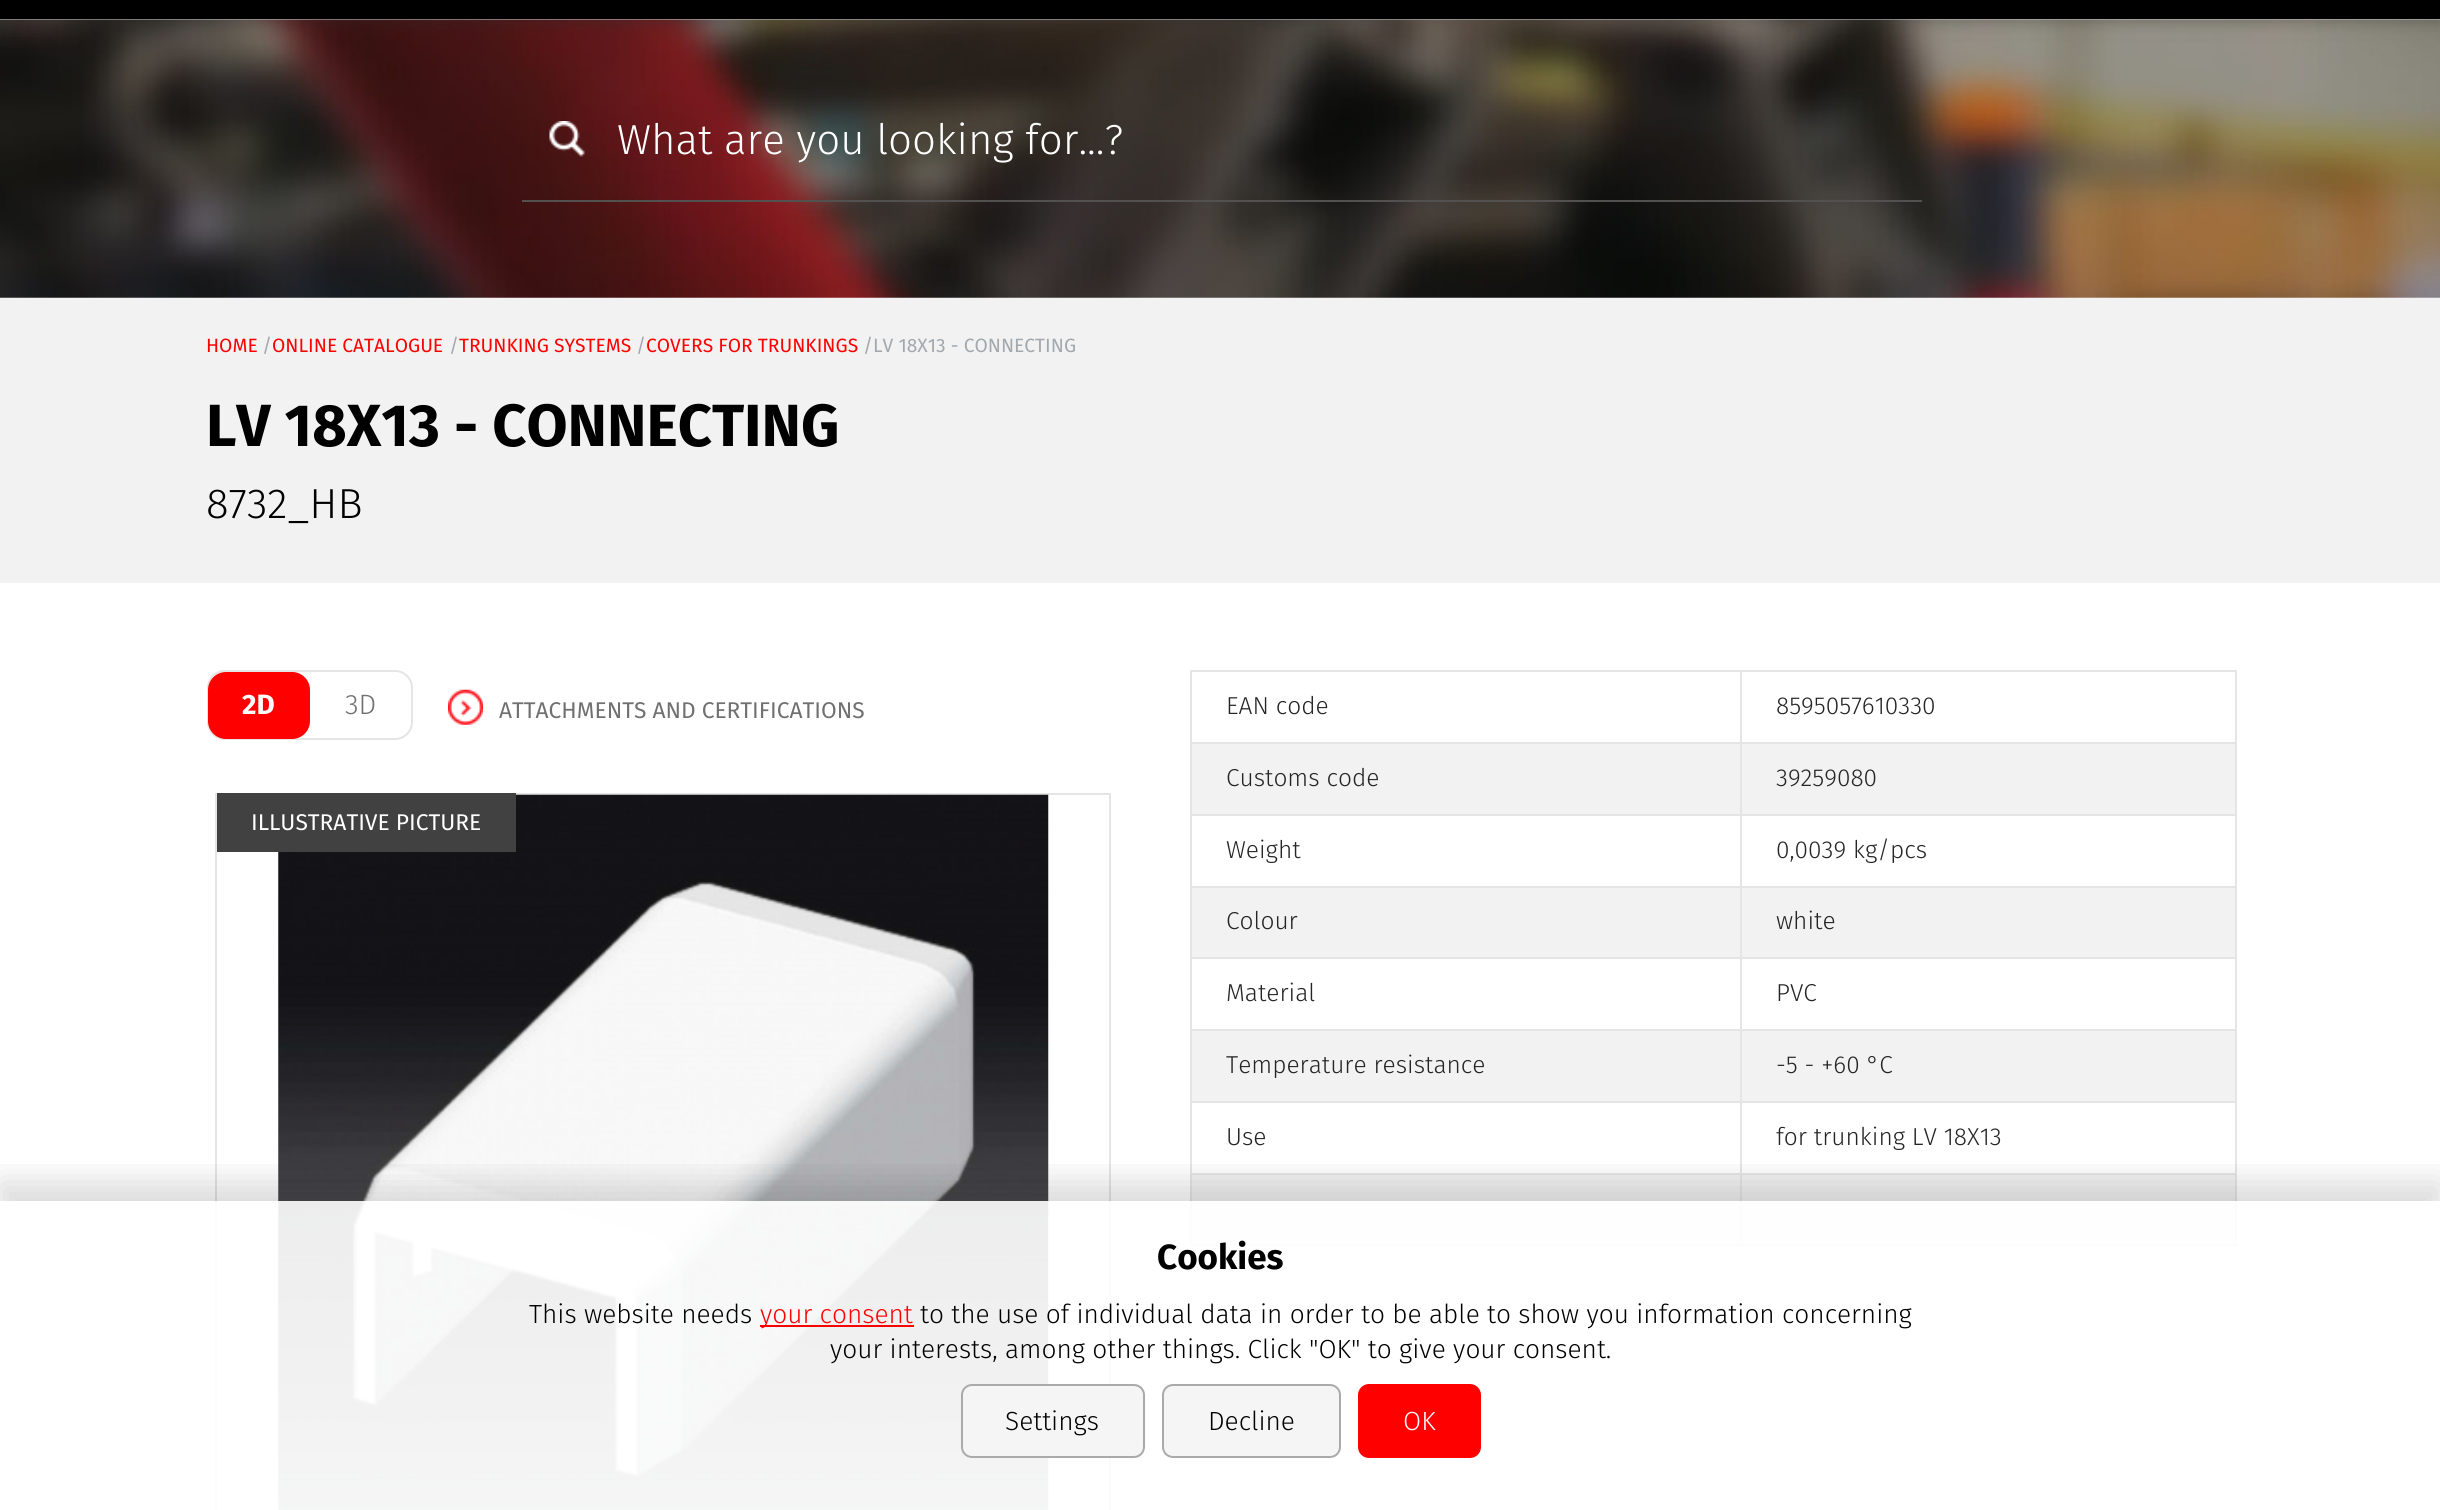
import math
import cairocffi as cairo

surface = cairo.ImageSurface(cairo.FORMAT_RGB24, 2440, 1510)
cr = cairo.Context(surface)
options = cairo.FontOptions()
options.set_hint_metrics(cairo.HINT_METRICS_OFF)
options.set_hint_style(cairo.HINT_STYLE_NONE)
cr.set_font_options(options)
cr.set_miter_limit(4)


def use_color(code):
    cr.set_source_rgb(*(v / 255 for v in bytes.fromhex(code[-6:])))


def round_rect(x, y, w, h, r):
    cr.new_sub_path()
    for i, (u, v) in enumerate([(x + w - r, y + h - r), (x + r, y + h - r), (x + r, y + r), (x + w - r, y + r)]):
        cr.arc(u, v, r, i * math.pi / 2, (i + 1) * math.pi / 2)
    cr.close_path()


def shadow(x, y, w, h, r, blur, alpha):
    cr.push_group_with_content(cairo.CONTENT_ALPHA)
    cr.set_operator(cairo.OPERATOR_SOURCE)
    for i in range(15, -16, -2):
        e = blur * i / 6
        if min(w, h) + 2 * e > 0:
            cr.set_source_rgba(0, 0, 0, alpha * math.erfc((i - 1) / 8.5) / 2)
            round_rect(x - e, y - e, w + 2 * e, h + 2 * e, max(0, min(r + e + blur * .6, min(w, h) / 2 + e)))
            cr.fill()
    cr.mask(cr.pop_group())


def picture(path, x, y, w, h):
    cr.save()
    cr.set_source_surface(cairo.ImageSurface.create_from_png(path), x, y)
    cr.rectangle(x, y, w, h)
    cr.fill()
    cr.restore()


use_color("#ffffff")
cr.paint()
picture("img1.png", 0, 19, 2440, 279)
use_color("#323232")
shadow(0, -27, 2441, 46, 0, 9, 0.5)
use_color("#000000")
cr.rectangle(0, 0, 2440, 19)
cr.fill()
picture("img2.png", 549, 121, 36, 36)
use_color("#52514f")
cr.rectangle(522, 200, 1400, 2)
cr.fill()
cr.select_font_face("Fira Sans Light")
cr.set_font_size(42)
use_color("#ffffff")
cr.move_to(617, 154)
cr.show_text("What are you looking for...?")
use_color("#f2f2f2")
cr.rectangle(0, 298, 2440, 285)
cr.fill()
cr.select_font_face("Fira Sans")
cr.set_font_size(19.25)
use_color("#ff0000")
cr.move_to(206, 352)
cr.show_text("HOME")
use_color("#a1a8ae")
cr.move_to(262, 352)
cr.show_text("/")
use_color("#ff0000")
cr.move_to(272, 352)
cr.show_text("ONLINE CATALOGUE")
use_color("#a1a8ae")
cr.move_to(449, 352)
cr.show_text("/")
use_color("#ff0000")
cr.move_to(459, 352)
cr.show_text("TRUNKING SYSTEMS")
use_color("#a1a8ae")
cr.move_to(636, 352)
cr.show_text("/")
use_color("#ff0000")
cr.move_to(646, 352)
cr.show_text("COVERS FOR TRUNKINGS")
use_color("#a1a8ae")
cr.move_to(863, 352)
cr.show_text("/LV 18X13 - CONNECTING")
cr.select_font_face("Fira Sans", cairo.FONT_SLANT_NORMAL, cairo.FONT_WEIGHT_BOLD)
cr.set_font_size(59.5)
use_color("#000000")
cr.move_to(206, 446)
cr.show_text("LV 18X13 - CONNECTING")
cr.select_font_face("Fira Sans Light")
cr.set_font_size(42)
cr.move_to(206, 518)
cr.show_text("8732_HB")
round_rect(208, 671, 204, 68, 17)
use_color("#e5e5e5")
cr.stroke()
use_color("#ff0000")
round_rect(208, 672, 102, 67, 18)
cr.fill()
cr.select_font_face("Fira Sans", cairo.FONT_SLANT_NORMAL, cairo.FONT_WEIGHT_BOLD)
cr.set_font_size(28)
use_color("#ffffff")
cr.move_to(242, 714)
cr.show_text("2D")
cr.select_font_face("Fira Sans Light")
use_color("#707070")
cr.move_to(345, 714)
cr.show_text("3D")
picture("img3.png", 448, 689, 35, 36)
cr.select_font_face("Fira Sans")
cr.set_font_size(22.75)
cr.move_to(499, 718)
cr.show_text("ATTACHMENTS AND CERTIFICATIONS")
cr.rectangle(216, 794, 894, 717)
use_color("#e5e5e5")
cr.stroke()
picture("img4.png", 278, 794, 771, 716)
use_color("#414141")
cr.rectangle(217, 793, 299, 59)
cr.fill()
use_color("#ffffff")
cr.move_to(251, 830)
cr.show_text("ILLUSTRATIVE PICTURE")
use_color("#e5e5e5")
cr.rectangle(1740, 670, 497, 2)
cr.fill()
cr.rectangle(1740, 742, 497, 2)
cr.fill()
use_color("#f2f2f2")
cr.rectangle(1192, 744, 1043, 70)
cr.fill()
use_color("#e5e5e5")
cr.rectangle(1740, 814, 497, 2)
cr.fill()
cr.rectangle(1740, 886, 497, 2)
cr.fill()
use_color("#f2f2f2")
cr.rectangle(1192, 888, 1043, 69)
cr.fill()
use_color("#e5e5e5")
cr.rectangle(1740, 957, 497, 2)
cr.fill()
cr.rectangle(1740, 1029, 497, 2)
cr.fill()
use_color("#f2f2f2")
cr.rectangle(1192, 1031, 1043, 70)
cr.fill()
use_color("#e5e5e5")
cr.rectangle(1740, 1101, 497, 2)
cr.fill()
cr.rectangle(1740, 1173, 497, 2)
cr.fill()
use_color("#f2f2f2")
cr.rectangle(1192, 1175, 1043, 69)
cr.fill()
use_color("#e5e5e5")
cr.rectangle(2235, 1173, 2, 73)
cr.fill()
cr.rectangle(1740, 1244, 497, 2)
cr.fill()
cr.rectangle(1740, 1173, 2, 73)
cr.fill()
cr.rectangle(1190, 1173, 551, 2)
cr.fill()
cr.rectangle(1740, 1101, 2, 73)
cr.fill()
cr.rectangle(1190, 1101, 551, 2)
cr.fill()
cr.rectangle(1740, 1029, 2, 74)
cr.fill()
cr.rectangle(1190, 1029, 551, 2)
cr.fill()
cr.rectangle(1740, 957, 2, 74)
cr.fill()
cr.rectangle(1190, 957, 551, 2)
cr.fill()
cr.rectangle(1740, 886, 2, 73)
cr.fill()
cr.rectangle(1190, 886, 551, 2)
cr.fill()
cr.rectangle(1740, 814, 2, 73)
cr.fill()
cr.rectangle(1190, 814, 551, 2)
cr.fill()
cr.rectangle(1740, 742, 2, 74)
cr.fill()
cr.rectangle(1190, 742, 551, 2)
cr.fill()
cr.rectangle(1740, 670, 2, 74)
cr.fill()
cr.rectangle(1190, 670, 551, 2)
cr.fill()
cr.rectangle(1190, 1244, 551, 2)
cr.fill()
cr.rectangle(1190, 1173, 2, 73)
cr.fill()
cr.rectangle(1190, 1101, 2, 73)
cr.fill()
cr.rectangle(1190, 1029, 2, 74)
cr.fill()
cr.rectangle(1190, 957, 2, 74)
cr.fill()
cr.rectangle(1190, 886, 2, 73)
cr.fill()
cr.rectangle(1190, 814, 2, 73)
cr.fill()
cr.rectangle(1190, 742, 2, 74)
cr.fill()
cr.rectangle(1190, 670, 2, 74)
cr.fill()
cr.select_font_face("Fira Sans Light")
cr.set_font_size(24.5)
use_color("#252525")
cr.move_to(1226, 714)
cr.show_text("EAN code")
use_color("#e5e5e5")
cr.rectangle(2235, 1101, 2, 73)
cr.fill()
cr.rectangle(2235, 1029, 2, 74)
cr.fill()
cr.rectangle(2235, 957, 2, 74)
cr.fill()
cr.rectangle(2235, 886, 2, 73)
cr.fill()
cr.rectangle(2235, 814, 2, 73)
cr.fill()
cr.rectangle(2235, 742, 2, 74)
cr.fill()
cr.rectangle(2235, 670, 2, 74)
cr.fill()
use_color("#252525")
cr.move_to(1776, 714)
cr.show_text("8595057610330")
cr.move_to(1226, 786)
cr.show_text("Customs code")
cr.move_to(1776, 786)
cr.show_text("39259080")
cr.move_to(1226, 858)
cr.show_text("Weight")
cr.move_to(1776, 858)
cr.show_text("0,0039 kg/pcs")
cr.move_to(1226, 929)
cr.show_text("Colour")
cr.move_to(1776, 929)
cr.show_text("white")
cr.move_to(1226, 1001)
cr.show_text("Material")
cr.move_to(1776, 1001)
cr.show_text("PVC")
cr.move_to(1226, 1073)
cr.show_text("Temperature resistance")
cr.move_to(1776, 1073)
cr.show_text("-5 - +60 °C")
cr.move_to(1226, 1145)
cr.show_text("Use")
cr.move_to(1776, 1145)
cr.show_text("for trunking LV 18X13")
cr.save()
cr.rectangle(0, 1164, 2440, 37)
cr.clip()
use_color("#000000")
shadow(0, 1183, 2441, 310, 0, 17.5, 0.15)
cr.restore()
cr.set_source_rgba(1, 1, 1, 0.9)
cr.rectangle(215, 1201, 2022, 309)
cr.fill()
cr.select_font_face("Fira Sans", cairo.FONT_SLANT_NORMAL, cairo.FONT_WEIGHT_BOLD)
cr.set_font_size(35)
use_color("#000000")
cr.move_to(1157, 1269)
cr.show_text("Cookies")
cr.select_font_face("Fira Sans Light")
cr.set_font_size(26.25)
cr.move_to(529, 1323)
cr.show_text("This website needs")
use_color("#ff0000")
cr.rectangle(760, 1325, 154, 2)
cr.fill()
cr.move_to(760, 1323)
cr.show_text("your consent")
use_color("#000000")
cr.move_to(920, 1323)
cr.show_text("to the use of individual data in order to be able to show you information concerning")
cr.move_to(830, 1358)
cr.show_text("your interests, among other things. Click \"OK\" to give your consent.")
use_color("#f5f5f5")
round_rect(962, 1385, 182, 72, 10)
cr.fill_preserve()
use_color("#aaaaaa")
cr.stroke()
use_color("#000000")
cr.move_to(1005, 1430)
cr.show_text("Settings")
use_color("#f5f5f5")
round_rect(1163, 1385, 177, 72, 10)
cr.fill_preserve()
use_color("#aaaaaa")
cr.stroke()
use_color("#000000")
cr.move_to(1208, 1430)
cr.show_text("Decline")
use_color("#ff0000")
round_rect(1359, 1385, 121, 72, 10)
cr.fill_preserve()
cr.stroke()
use_color("#ffffff")
cr.move_to(1403, 1430)
cr.show_text("OK")
surface.write_to_png("result.png")
